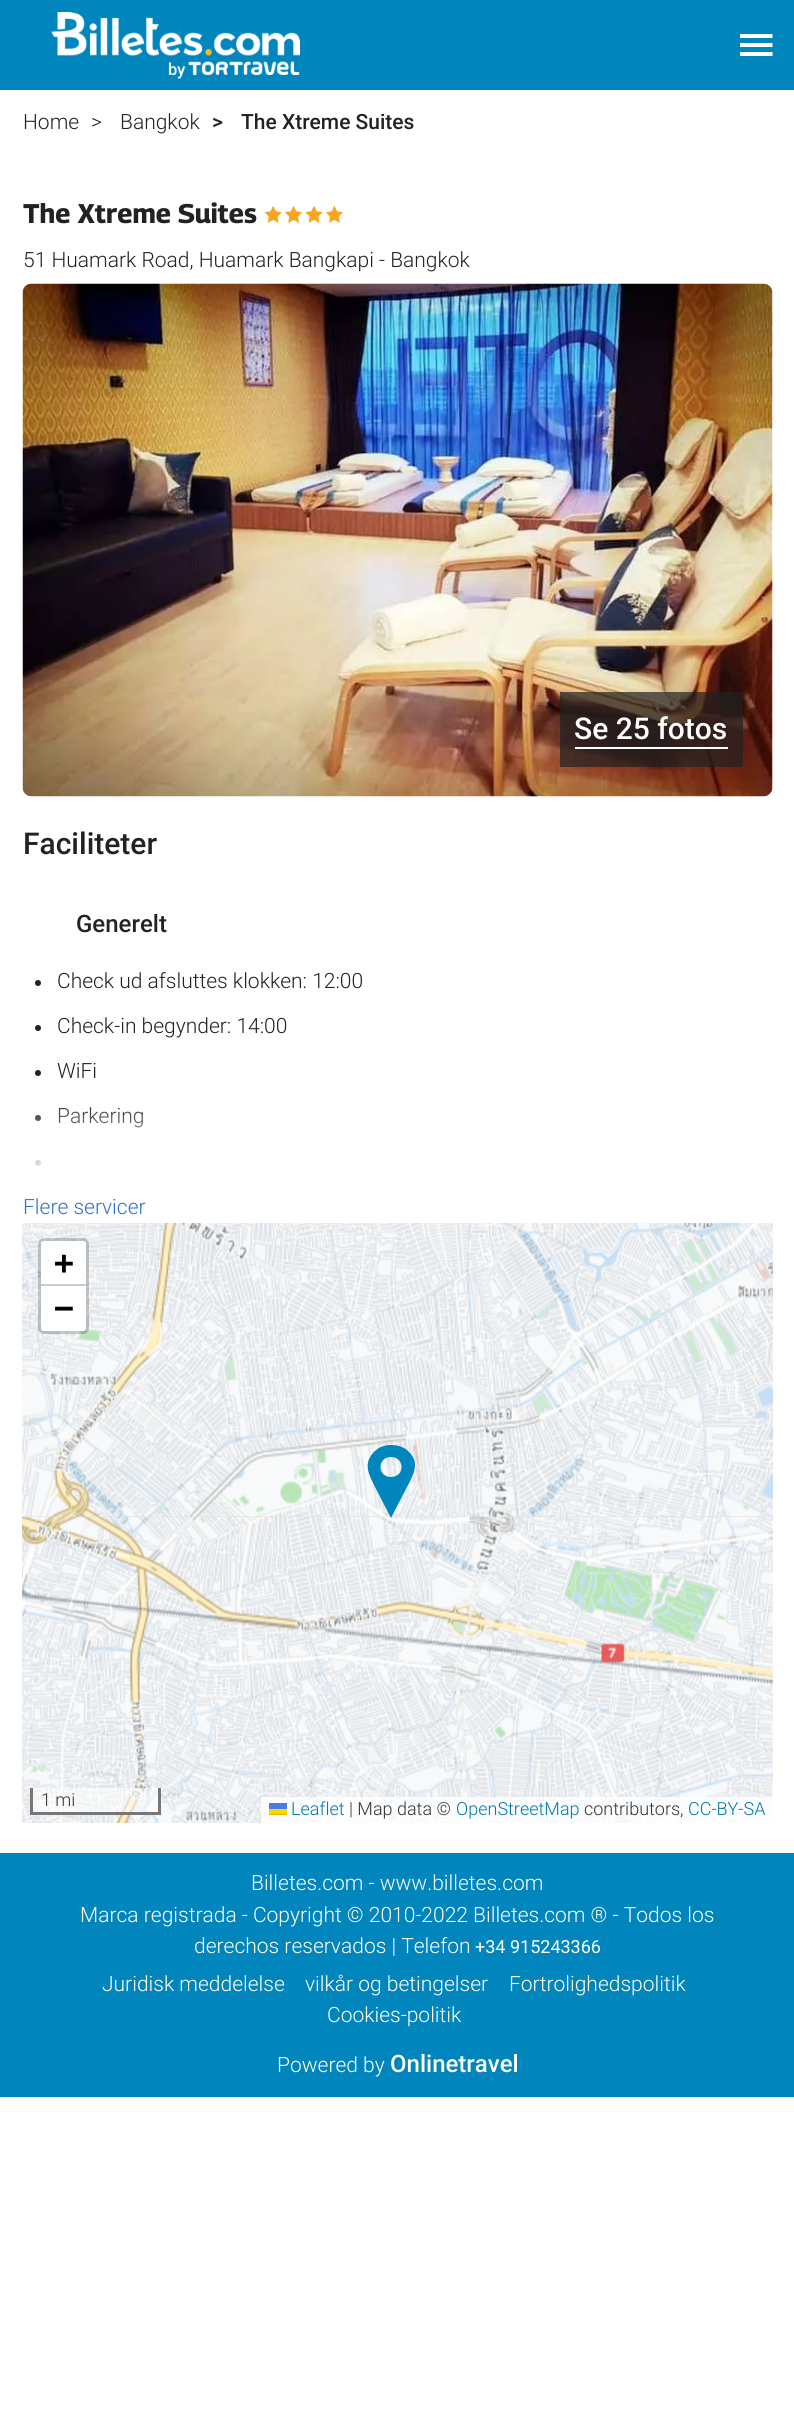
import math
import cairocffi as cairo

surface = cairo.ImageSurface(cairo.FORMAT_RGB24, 794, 2414)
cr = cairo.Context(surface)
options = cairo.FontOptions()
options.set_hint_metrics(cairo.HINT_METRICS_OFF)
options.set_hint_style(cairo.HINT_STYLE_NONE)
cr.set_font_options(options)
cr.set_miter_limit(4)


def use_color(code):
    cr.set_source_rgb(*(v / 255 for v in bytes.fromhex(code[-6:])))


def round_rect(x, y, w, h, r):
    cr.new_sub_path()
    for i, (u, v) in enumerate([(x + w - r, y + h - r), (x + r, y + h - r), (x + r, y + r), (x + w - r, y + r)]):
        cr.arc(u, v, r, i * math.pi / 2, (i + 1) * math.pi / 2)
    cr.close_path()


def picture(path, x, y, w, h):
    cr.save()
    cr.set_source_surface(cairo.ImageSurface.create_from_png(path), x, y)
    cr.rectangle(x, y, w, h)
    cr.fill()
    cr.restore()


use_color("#ffffff")
cr.paint()
use_color("#0085bc")
cr.rectangle(0, 0, 794, 90)
cr.fill()
picture("img1.png", 51, 12, 249, 67)
use_color("#ffffff")
cr.set_fill_rule(cairo.FILL_RULE_EVEN_ODD)
cr.new_path()
cr.move_to(740, 38)
cr.line_to(740, 34)
cr.line_to(772.5, 34)
cr.line_to(772.5, 38)
cr.close_path()
cr.move_to(740, 47)
cr.line_to(740, 43)
cr.line_to(772.5, 43)
cr.line_to(772.5, 47)
cr.close_path()
cr.move_to(740, 56)
cr.line_to(772.5, 56)
cr.line_to(772.5, 52)
cr.line_to(740, 52)
cr.close_path()
cr.fill()
cr.select_font_face("Roboto Light")
cr.set_font_size(21)
use_color("#222222")
cr.move_to(23, 129)
cr.show_text("Home")
cr.move_to(91, 129)
cr.show_text(">")
cr.move_to(120, 129)
cr.show_text("Bangkok")
cr.select_font_face("Roboto Medium")
cr.move_to(212, 129)
cr.show_text(">")
cr.move_to(241, 129)
cr.show_text("The Xtreme Suites")
cr.select_font_face("Georama", cairo.FONT_SLANT_NORMAL, cairo.FONT_WEIGHT_BOLD)
cr.set_font_size(27)
cr.move_to(23, 223)
cr.show_text("The Xtreme Suites")
picture("img2.png", 264, 206, 79, 17)
cr.select_font_face("Roboto Light")
cr.set_font_size(21)
cr.move_to(23, 267)
cr.show_text("51 Huamark Road, Huamark Bangkapi - Bangkok")
picture("img3.png", 22, 283, 751, 514)
cr.set_source_rgba(0.133, 0.133, 0.133, 0.7)
cr.rectangle(560, 692, 183, 75)
cr.fill()
cr.select_font_face("Roboto Medium")
cr.set_font_size(30)
use_color("#ffffff")
cr.move_to(574, 739)
cr.show_text("Se 25 fotos")
cr.rectangle(575, 747, 153, 2)
cr.fill()
use_color("#222222")
cr.move_to(23, 854)
cr.show_text("Faciliteter")
cr.set_font_size(24)
cr.move_to(76, 932)
cr.show_text("Generelt")
cr.new_path()
cr.arc(38, 983, 3, 0, 2 * math.pi)
cr.fill()
cr.select_font_face("Roboto Light")
cr.set_font_size(21)
cr.move_to(57, 988)
cr.show_text("Check ud afsluttes klokken: 12:00")
cr.new_path()
cr.arc(38, 1028, 3, 0, 2 * math.pi)
cr.fill()
cr.move_to(57, 1033)
cr.show_text("Check-in begynder: 14:00")
cr.new_path()
cr.arc(38, 1073, 3, 0, 2 * math.pi)
cr.fill()
cr.move_to(57, 1078)
cr.show_text("WiFi")
cr.new_path()
cr.arc(38, 1118, 3, 0, 2 * math.pi)
cr.fill()
cr.move_to(57, 1123)
cr.show_text("Parkering")
cr.new_path()
cr.arc(38, 1163, 3, 0, 2 * math.pi)
cr.fill()
gradient = cairo.LinearGradient(398, 1101, 398, 1176)
gradient.add_color_stop_rgba(0, 1, 1, 1, 0)
gradient.add_color_stop_rgba(1, 1, 1, 1, 1)
cr.set_source(gradient)
cr.rectangle(35, 1107, 108, 59)
cr.fill()
use_color("#3171c9")
cr.move_to(23, 1214)
cr.show_text("Flere servicer")
use_color("#dddddd")
cr.rectangle(23, 1516, 750, 1)
cr.fill()
picture("img4.png", 22, 1223, 380, 294)
picture("img5.png", 402, 1223, 371, 294)
picture("img6.png", 22, 1517, 380, 306)
picture("img7.png", 402, 1517, 371, 306)
use_color("#0085bc")
cr.new_path()
cr.move_to(391, 1445)
cr.curve_to(385, 1445, 379, 1447, 375, 1451)
cr.curve_to(362, 1463, 369, 1475, 375, 1487)
cr.line_to(391, 1518)
cr.line_to(407, 1487)
cr.curve_to(413, 1475, 421, 1463, 408, 1451)
cr.curve_to(404, 1447, 398, 1445, 391, 1445)
cr.close_path()
cr.move_to(391, 1477)
cr.curve_to(377, 1477, 377, 1457, 391, 1457)
cr.curve_to(405, 1457, 405, 1477, 391, 1477)
cr.close_path()
cr.fill()
round_rect(39.5, 1239.5, 48, 93, 4.5)
cr.set_source_rgba(0, 0, 0, 0.2)
cr.set_line_width(3)
cr.stroke()
use_color("#ffffff")
cr.new_path()
cr.move_to(44, 1241)
cr.line_to(83, 1241)
cr.curve_to(84.5, 1241, 86, 1242.5, 86, 1244)
cr.line_to(86, 1286)
cr.line_to(41, 1286)
cr.line_to(41, 1244)
cr.curve_to(41, 1242.5, 42.5, 1241, 44, 1241)
cr.close_path()
cr.fill()
use_color("#cccccc")
cr.rectangle(41, 1284, 45, 2)
cr.fill()
cr.select_font_face("DejaVu Sans Mono", cairo.FONT_SLANT_NORMAL, cairo.FONT_WEIGHT_BOLD)
cr.set_font_size(33)
use_color("#000000")
cr.move_to(54, 1274)
cr.show_text("+")
use_color("#ffffff")
cr.new_path()
cr.move_to(41, 1286)
cr.line_to(86, 1286)
cr.line_to(86, 1328)
cr.curve_to(86, 1329.5, 84.5, 1331, 83, 1331)
cr.line_to(44, 1331)
cr.curve_to(42.5, 1331, 41, 1329.5, 41, 1328)
cr.close_path()
cr.fill()
use_color("#000000")
cr.move_to(54, 1319)
cr.show_text("−")
cr.set_source_rgba(1, 1, 1, 0.5)
cr.rectangle(33, 1788, 125, 24)
cr.fill()
use_color("#777777")
cr.rectangle(158, 1788, 3, 27)
cr.fill()
cr.rectangle(30, 1812, 131, 3)
cr.fill()
cr.rectangle(30, 1788, 3, 27)
cr.fill()
cr.select_font_face("Roboto Light")
cr.set_font_size(18)
use_color("#333333")
cr.move_to(41, 1806)
cr.show_text("1 mi")
cr.set_source_rgba(1, 1, 1, 0.8)
cr.rectangle(261, 1797, 512, 26)
cr.fill()
use_color("#0078a8")
cr.move_to(291, 1815)
cr.show_text("Leaflet")
use_color("#4c7be1")
cr.rectangle(269, 1803, 18, 6)
cr.fill()
use_color("#ffd500")
cr.rectangle(269, 1809, 18, 5)
cr.fill()
use_color("#e0bc00")
cr.rectangle(269, 1814, 18, 1)
cr.fill()
use_color("#333333")
cr.move_to(349, 1815)
cr.show_text("| Map data ©")
use_color("#0078a8")
cr.move_to(456, 1815)
cr.show_text("OpenStreetMap")
use_color("#333333")
cr.move_to(584, 1815)
cr.show_text("contributors,")
use_color("#0078a8")
cr.move_to(688, 1815)
cr.show_text("CC-BY-SA")
use_color("#0085bc")
cr.rectangle(0, 1853, 794, 244)
cr.fill()
cr.set_font_size(21)
use_color("#ffffff")
cr.move_to(251, 1890)
cr.show_text("Billetes.com - www.billetes.com")
cr.move_to(80, 1922)
cr.show_text("Marca registrada - Copyright © 2010-2022 Billetes.com ® - Todos los")
cr.move_to(194, 1953)
cr.show_text("derechos reservados | Telefon")
cr.select_font_face("Roboto")
cr.set_font_size(18)
cr.move_to(475, 1953)
cr.show_text("+34 915243366")
cr.select_font_face("Roboto Light")
cr.set_font_size(21)
cr.move_to(102, 1991)
cr.show_text("Juridisk meddelelse")
cr.move_to(305, 1991)
cr.show_text("vilkår og betingelser")
cr.move_to(509, 1991)
cr.show_text("Fortrolighedspolitik")
cr.move_to(327, 2022)
cr.show_text("Cookies-politik")
cr.move_to(277, 2072)
cr.show_text("Powered by")
cr.select_font_face("Roboto Medium")
cr.set_font_size(24)
cr.move_to(390, 2072)
cr.show_text("Onlinetravel")
surface.write_to_png("result.png")
